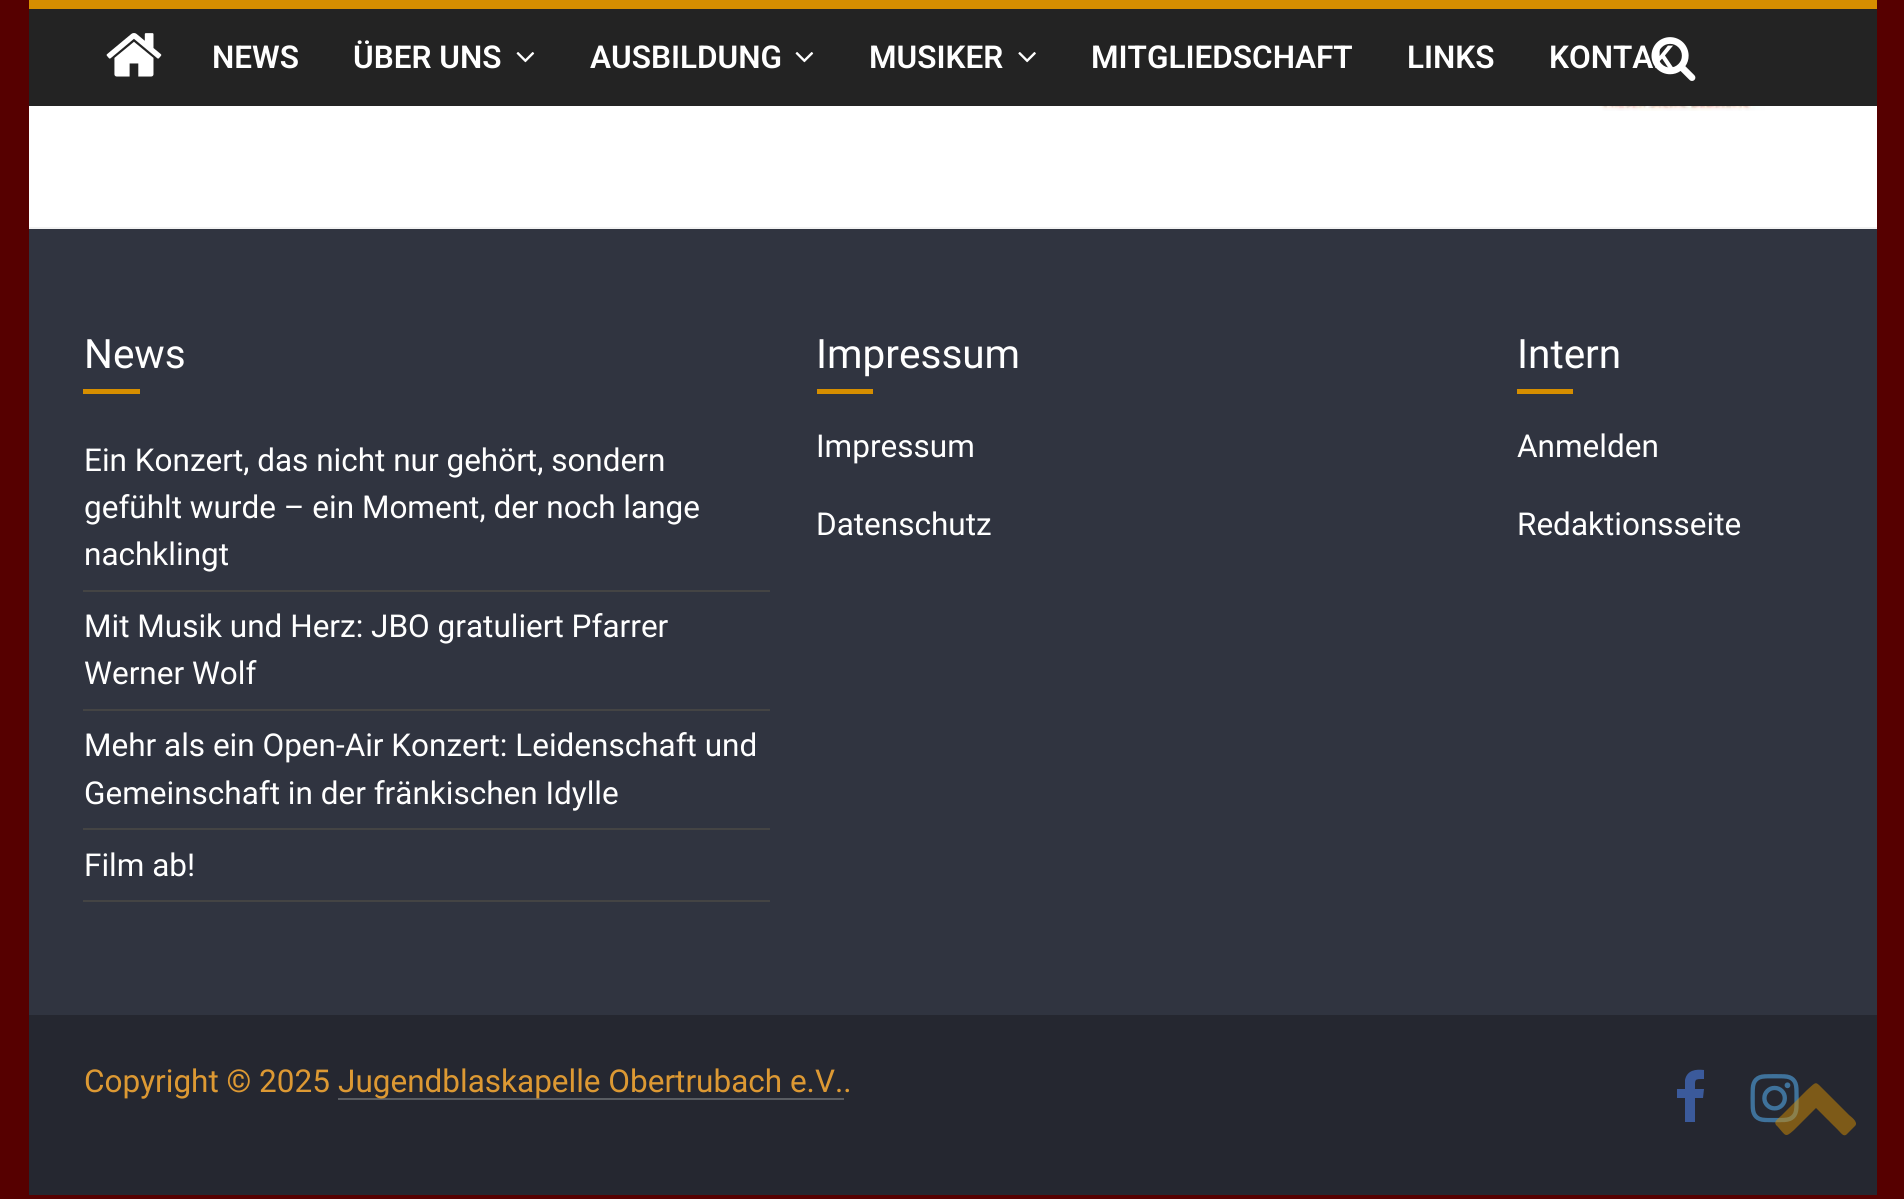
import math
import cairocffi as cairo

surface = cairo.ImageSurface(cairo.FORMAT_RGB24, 1904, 1199)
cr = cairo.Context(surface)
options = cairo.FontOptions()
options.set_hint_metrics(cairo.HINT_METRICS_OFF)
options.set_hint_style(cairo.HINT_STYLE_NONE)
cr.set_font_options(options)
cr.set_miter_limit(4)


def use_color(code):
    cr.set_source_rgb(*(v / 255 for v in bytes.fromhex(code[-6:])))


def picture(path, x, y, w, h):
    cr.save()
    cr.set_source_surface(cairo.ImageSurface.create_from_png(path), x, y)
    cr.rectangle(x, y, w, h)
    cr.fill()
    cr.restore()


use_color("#560000")
cr.paint()
use_color("#232323")
cr.rectangle(29, 9, 1848, 97)
cr.fill()
use_color("#d68e00")
cr.rectangle(29, 0, 1848, 9)
cr.fill()
picture("img1.png", 106, 33, 56, 44)
cr.select_font_face("Roboto SemiBold")
cr.set_font_size(31.5)
use_color("#ffffff")
cr.move_to(1549, 68)
cr.show_text("KONTAK")
picture("img2.png", 1651, 37, 45, 44)
cr.move_to(212, 68)
cr.show_text("NEWS")
cr.move_to(353, 68)
cr.show_text("ÜBER UNS")
picture("img3.png", 516, 52, 19, 11)
cr.move_to(590, 68)
cr.show_text("AUSBILDUNG")
picture("img3.png", 795, 52, 19, 11)
cr.move_to(869, 68)
cr.show_text("MUSIKER")
picture("img4.png", 1018, 52, 18, 11)
cr.move_to(1091, 68)
cr.show_text("MITGLIEDSCHAFT")
cr.move_to(1407, 68)
cr.show_text("LINKS")
cr.rectangle(29, 106, 1848, 121)
cr.fill()
picture("img5.png", 1563, 106, 231, 5)
use_color("#303440")
cr.rectangle(29, 229, 1848, 786)
cr.fill()
use_color("#f2f2f2")
cr.rectangle(29, 227, 1848, 2)
cr.fill()
cr.select_font_face("Roboto")
cr.set_font_size(40.5)
use_color("#ffffff")
cr.move_to(84, 368)
cr.show_text("News")
use_color("#d68e00")
cr.rectangle(83, 389, 57, 5)
cr.fill()
use_color("#444444")
cr.rectangle(83, 590, 687, 2)
cr.fill()
cr.set_font_size(31.5)
use_color("#ffffff")
cr.move_to(84, 471)
cr.show_text("Ein Konzert, das nicht nur gehört, sondern")
cr.move_to(84, 518)
cr.show_text("gefühlt wurde – ein Moment, der noch lange")
cr.move_to(84, 565)
cr.show_text("nachklingt")
use_color("#444444")
cr.rectangle(83, 709, 687, 2)
cr.fill()
use_color("#ffffff")
cr.move_to(84, 637)
cr.show_text("Mit Musik und Herz: JBO gratuliert Pfarrer")
cr.move_to(84, 684)
cr.show_text("Werner Wolf")
use_color("#444444")
cr.rectangle(83, 828, 687, 2)
cr.fill()
use_color("#ffffff")
cr.move_to(84, 756)
cr.show_text("Mehr als ein Open-Air Konzert: Leidenschaft und")
cr.move_to(84, 804)
cr.show_text("Gemeinschaft in der fränkischen Idylle")
use_color("#444444")
cr.rectangle(83, 900, 687, 2)
cr.fill()
use_color("#ffffff")
cr.move_to(84, 876)
cr.show_text("Film ab!")
cr.set_font_size(40.5)
cr.move_to(816, 368)
cr.show_text("Impressum")
use_color("#d68e00")
cr.rectangle(817, 389, 56, 5)
cr.fill()
cr.set_font_size(31.5)
use_color("#ffffff")
cr.move_to(816, 457)
cr.show_text("Impressum")
cr.move_to(816, 535)
cr.show_text("Datenschutz")
cr.set_font_size(40.5)
cr.move_to(1517, 368)
cr.show_text("Intern")
use_color("#d68e00")
cr.rectangle(1517, 389, 56, 5)
cr.fill()
cr.set_font_size(31.5)
use_color("#ffffff")
cr.move_to(1517, 457)
cr.show_text("Anmelden")
cr.move_to(1517, 535)
cr.show_text("Redaktionsseite")
use_color("#252730")
cr.rectangle(29, 1015, 1848, 180)
cr.fill()
use_color("#dd9933")
cr.move_to(84, 1092)
cr.show_text("Copyright © 2025")
use_color("#5a5d62")
cr.rectangle(338, 1098, 506, 2)
cr.fill()
use_color("#dd9933")
cr.move_to(338, 1092)
cr.show_text("Jugendblaskapelle Obertrubach e.V..")
use_color("#3b5a9b")
cr.new_path()
cr.move_to(1704, 1070)
cr.line_to(1704, 1079)
cr.curve_to(1694, 1079, 1695, 1079, 1695, 1089)
cr.line_to(1704, 1089)
cr.line_to(1703, 1098)
cr.line_to(1695, 1098)
cr.line_to(1695, 1122)
cr.line_to(1685, 1122)
cr.line_to(1685, 1098)
cr.line_to(1677, 1098)
cr.line_to(1677, 1089)
cr.line_to(1685, 1089)
cr.line_to(1685, 1080)
cr.curve_to(1687, 1070, 1696, 1069, 1704, 1070)
cr.close_path()
cr.fill()
picture("img6.png", 1750, 1074, 49, 49)
cr.set_source_rgba(0.839, 0.557, 0, 0.5)
cr.new_path()
cr.move_to(1855, 1126)
cr.line_to(1848, 1133)
cr.curve_to(1844, 1138, 1842, 1134, 1838, 1130)
cr.line_to(1816, 1108)
cr.line_to(1794, 1130)
cr.curve_to(1785, 1138, 1786, 1136, 1778, 1127)
cr.curve_to(1772, 1122, 1777, 1120, 1782, 1115)
cr.line_to(1807, 1090)
cr.curve_to(1817, 1081, 1815, 1081, 1824, 1090)
cr.line_to(1849, 1115)
cr.curve_to(1850, 1116, 1859, 1122, 1855, 1126)
cr.close_path()
cr.fill()
surface.write_to_png("result.png")
